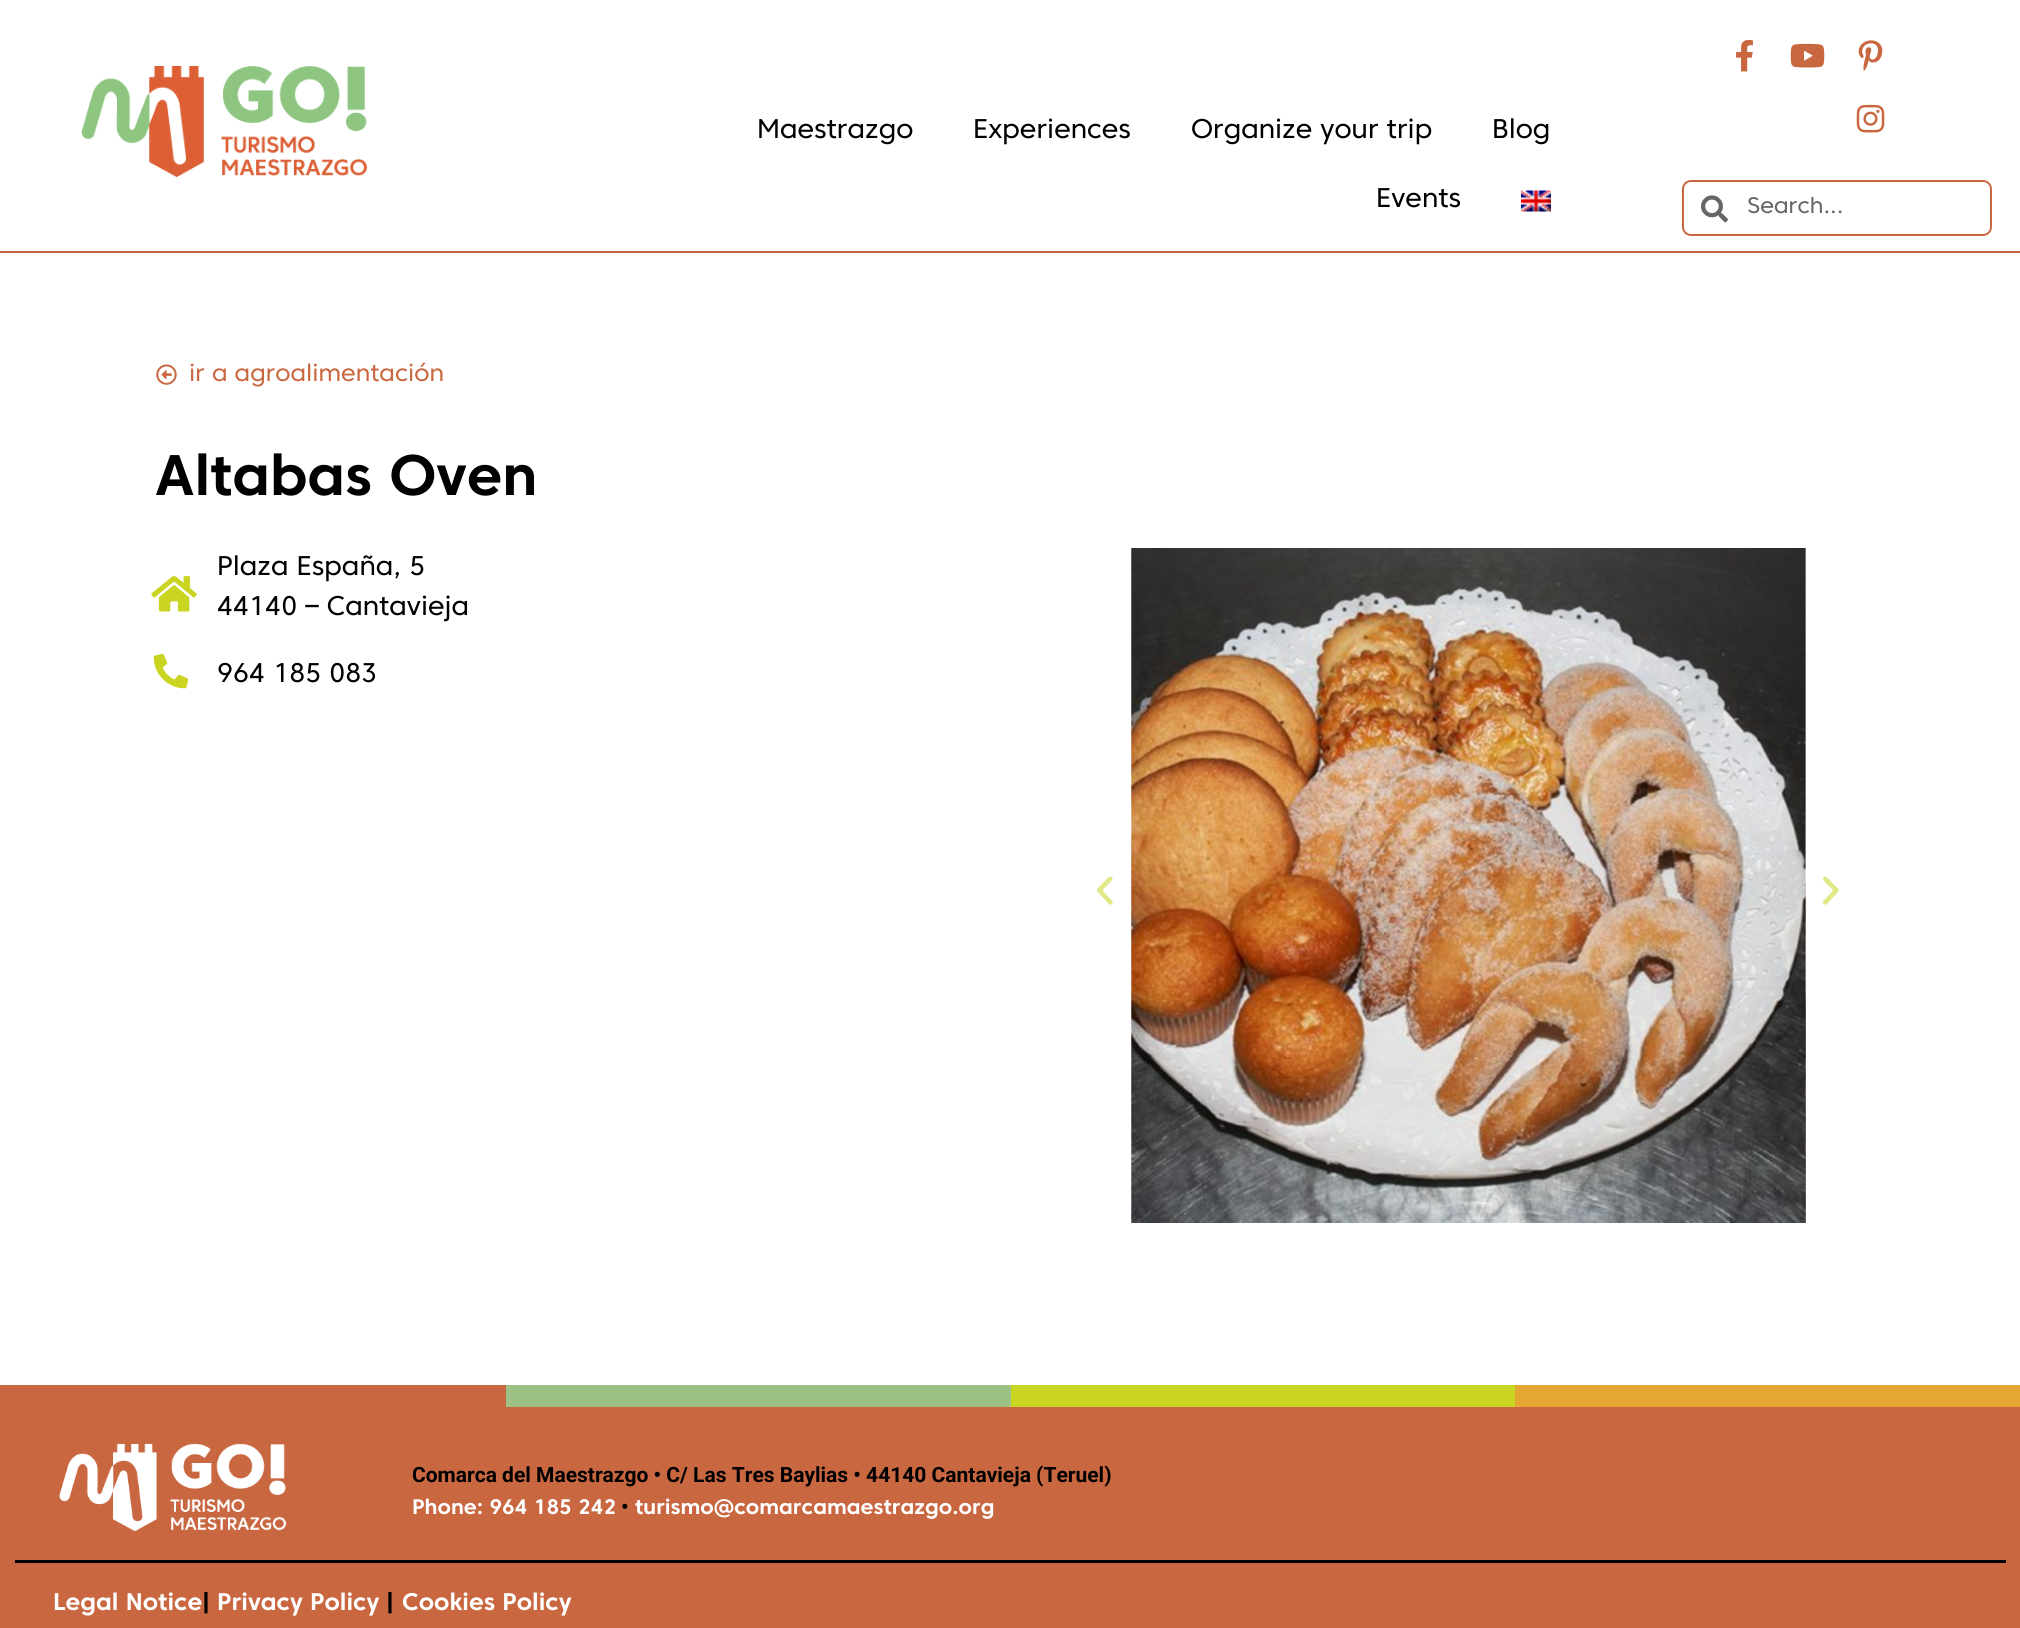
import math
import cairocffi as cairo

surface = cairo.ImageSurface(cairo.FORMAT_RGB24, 2020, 1628)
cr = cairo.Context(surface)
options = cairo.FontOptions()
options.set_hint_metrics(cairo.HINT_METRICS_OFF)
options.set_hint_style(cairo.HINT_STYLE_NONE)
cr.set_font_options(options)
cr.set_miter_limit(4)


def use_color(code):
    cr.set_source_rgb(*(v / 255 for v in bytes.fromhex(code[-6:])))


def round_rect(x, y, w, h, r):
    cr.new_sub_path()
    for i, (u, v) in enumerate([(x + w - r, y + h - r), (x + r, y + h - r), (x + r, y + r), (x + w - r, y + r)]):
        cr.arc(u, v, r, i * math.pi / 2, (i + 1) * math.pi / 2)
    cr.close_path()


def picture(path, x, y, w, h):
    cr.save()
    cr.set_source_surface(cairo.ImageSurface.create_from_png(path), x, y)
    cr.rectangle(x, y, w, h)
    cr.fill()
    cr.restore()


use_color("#ffffff")
cr.paint()
use_color("#c96741")
cr.rectangle(0, 251, 2020, 2)
cr.fill()
picture("img1.png", 81, 66, 287, 111)
cr.select_font_face("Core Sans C")
cr.set_font_size(27)
use_color("#000000")
cr.move_to(757, 138)
cr.show_text("Maestrazgo")
cr.move_to(973, 138)
cr.show_text("Experiences")
cr.move_to(1191, 138)
cr.show_text("Organize your trip")
cr.move_to(1492, 138)
cr.show_text("Blog")
cr.move_to(1376, 207)
cr.show_text("Events")
picture("img2.png", 1521, 190, 30, 22)
picture("img3.png", 1736, 39, 17, 33)
picture("img4.png", 1790, 43, 35, 25)
picture("img5.png", 1858, 40, 25, 31)
picture("img6.png", 1856, 104, 29, 29)
round_rect(1683, 181, 308, 54, 8)
use_color("#c96741")
cr.stroke()
picture("img7.png", 1701, 195, 27, 28)
cr.save()
cr.rectangle(1746, 197, 206, 22)
cr.clip()
cr.set_font_size(22.5)
use_color("#666666")
cr.move_to(1747, 213)
cr.show_text("Search...")
cr.restore()
picture("img8.png", 156, 364, 21, 21)
cr.set_font_size(24)
cr.move_to(189, 381)
cr.show_text("ir a agroalimentación")
cr.select_font_face("Core Sans C", cairo.FONT_SLANT_NORMAL, cairo.FONT_WEIGHT_BOLD)
cr.set_font_size(57)
use_color("#000000")
cr.move_to(155, 495)
cr.show_text("Altabas Oven")
picture("img9.png", 151, 576, 46, 36)
cr.select_font_face("Core Sans C")
cr.set_font_size(27)
cr.move_to(217, 575)
cr.show_text("Plaza España, 5")
cr.move_to(217, 615)
cr.show_text("44140 – Cantavieja")
picture("img10.png", 153, 653, 36, 36)
cr.move_to(217, 682)
cr.show_text("964 185 083")
picture("img11.png", 1097, 876, 16, 29)
picture("img12.png", 1131, 548, 675, 675)
picture("img13.png", 1805, 548, 1, 675)
picture("img14.png", 1822, 876, 17, 29)
use_color("#c96741")
cr.rectangle(0, 1385, 506, 22)
cr.fill()
use_color("#9cc184")
cr.rectangle(506, 1385, 505, 22)
cr.fill()
use_color("#cad522")
cr.rectangle(1011, 1385, 504, 22)
cr.fill()
use_color("#e4a732")
cr.rectangle(1515, 1385, 505, 22)
cr.fill()
use_color("#c96741")
cr.rectangle(0, 1407, 2020, 221)
cr.fill()
picture("img15.png", 59, 1443, 228, 88)
cr.select_font_face("Roboto", cairo.FONT_SLANT_NORMAL, cairo.FONT_WEIGHT_BOLD)
cr.set_font_size(21)
use_color("#000000")
cr.move_to(412, 1482)
cr.show_text("Comarca del Maestrazgo • C/ Las Tres Baylias • 44140 Cantavieja (Teruel)")
cr.select_font_face("Core Sans C", cairo.FONT_SLANT_NORMAL, cairo.FONT_WEIGHT_BOLD)
use_color("#ffffff")
cr.move_to(412, 1514)
cr.show_text("Phone: 964 185 242")
cr.select_font_face("Roboto", cairo.FONT_SLANT_NORMAL, cairo.FONT_WEIGHT_BOLD)
use_color("#000000")
cr.move_to(621, 1514)
cr.show_text("•")
cr.select_font_face("Core Sans C", cairo.FONT_SLANT_NORMAL, cairo.FONT_WEIGHT_BOLD)
use_color("#ffffff")
cr.move_to(635, 1514)
cr.show_text("turismo@comarcamaestrazgo.org")
use_color("#000000")
cr.rectangle(15, 1560, 1991, 3)
cr.fill()
cr.set_font_size(24)
use_color("#ffffff")
cr.move_to(53, 1610)
cr.show_text("Legal Notice")
use_color("#000000")
cr.move_to(202, 1610)
cr.show_text("|")
use_color("#ffffff")
cr.move_to(217, 1610)
cr.show_text("Privacy Policy")
use_color("#000000")
cr.move_to(386, 1610)
cr.show_text("|")
use_color("#ffffff")
cr.move_to(402, 1610)
cr.show_text("Cookies Policy")
surface.write_to_png("result.png")
